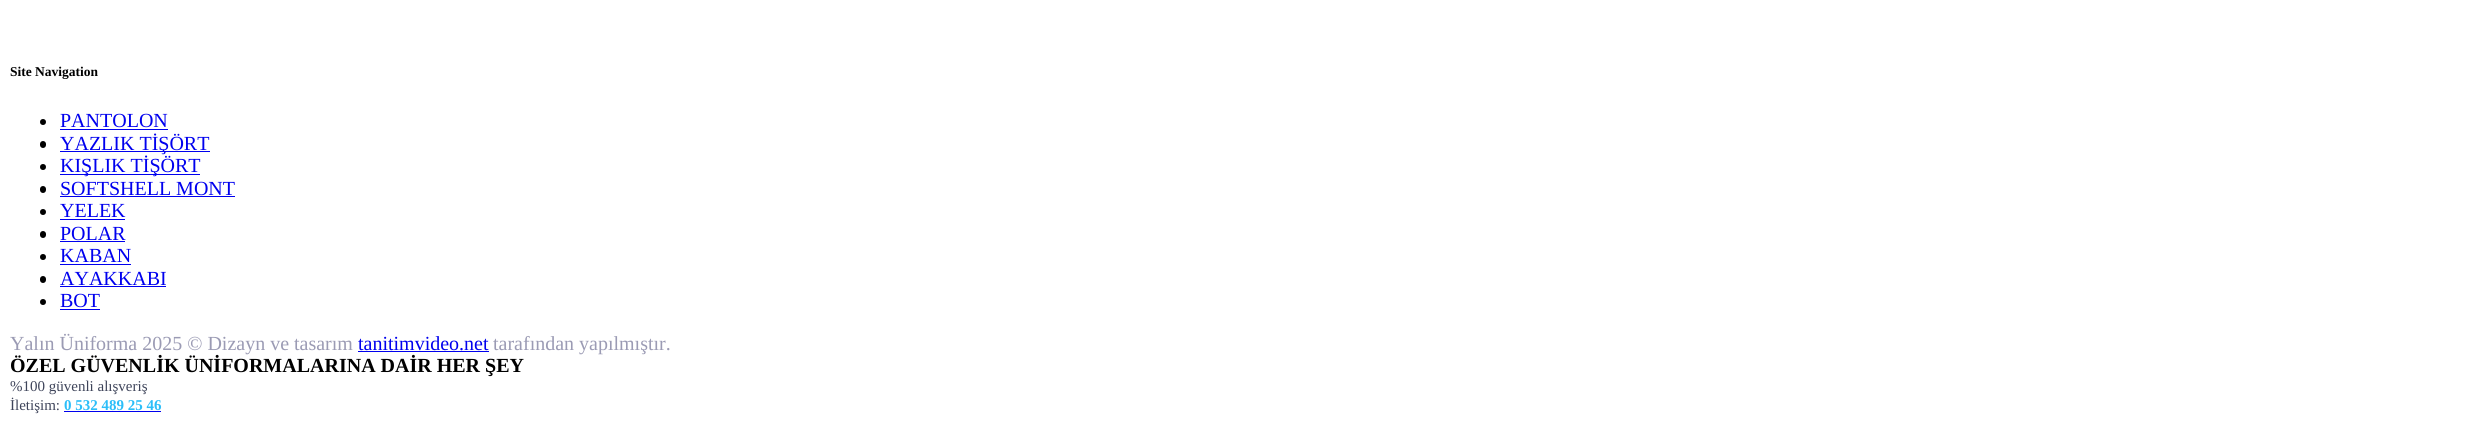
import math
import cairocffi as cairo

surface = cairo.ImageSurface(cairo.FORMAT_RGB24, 2479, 423)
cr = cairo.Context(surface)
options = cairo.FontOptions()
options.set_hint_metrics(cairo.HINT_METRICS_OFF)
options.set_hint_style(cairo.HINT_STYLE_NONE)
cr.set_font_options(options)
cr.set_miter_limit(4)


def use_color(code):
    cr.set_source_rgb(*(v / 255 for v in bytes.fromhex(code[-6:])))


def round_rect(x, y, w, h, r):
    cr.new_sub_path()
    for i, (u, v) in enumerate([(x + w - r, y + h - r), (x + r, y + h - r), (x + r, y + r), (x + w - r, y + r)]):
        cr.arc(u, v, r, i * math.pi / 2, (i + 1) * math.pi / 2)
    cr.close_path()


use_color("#ffffff")
cr.paint()
cr.select_font_face("Liberation Serif", cairo.FONT_SLANT_NORMAL, cairo.FONT_WEIGHT_BOLD)
cr.set_font_size(13.5)
use_color("#000000")
cr.move_to(10, 76)
cr.show_text("Site Navigation")
cr.new_path()
cr.arc(43, 122, 3, 0, 2 * math.pi)
cr.fill()
cr.select_font_face("Liberation Serif")
cr.set_font_size(20)
use_color("#0000ee")
cr.move_to(60, 127)
cr.show_text("PANTOLON")
cr.rectangle(60, 129, 108, 1)
cr.fill()
use_color("#000000")
round_rect(40, 141, 6, 7, 3)
cr.fill()
use_color("#0000ee")
cr.rectangle(60, 151, 150, 1)
cr.fill()
cr.move_to(60, 150)
cr.show_text("YAZLIK TİŞÖRT")
use_color("#000000")
cr.new_path()
cr.arc(43, 167, 3, 0, 2 * math.pi)
cr.fill()
use_color("#0000ee")
cr.rectangle(60, 174, 140, 1)
cr.fill()
cr.move_to(60, 172)
cr.show_text("KIŞLIK TİŞÖRT")
use_color("#000000")
round_rect(40, 186, 6, 7, 3)
cr.fill()
use_color("#0000ee")
cr.move_to(60, 195)
cr.show_text("SOFTSHELL MONT")
cr.rectangle(60, 196, 175, 1)
cr.fill()
use_color("#000000")
cr.arc(43, 212, 3, 0, 2 * math.pi)
cr.fill()
use_color("#0000ee")
cr.move_to(60, 217)
cr.show_text("YELEK")
cr.rectangle(60, 219, 65, 1)
cr.fill()
use_color("#000000")
round_rect(40, 231, 6, 7, 3)
cr.fill()
use_color("#0000ee")
cr.move_to(60, 240)
cr.show_text("POLAR")
cr.rectangle(60, 241, 65, 1)
cr.fill()
use_color("#000000")
cr.arc(43, 257, 3, 0, 2 * math.pi)
cr.fill()
use_color("#0000ee")
cr.move_to(60, 262)
cr.show_text("KABAN")
cr.rectangle(60, 264, 71, 1)
cr.fill()
use_color("#000000")
round_rect(40, 276, 6, 7, 3)
cr.fill()
use_color("#0000ee")
cr.move_to(60, 285)
cr.show_text("AYAKKABI")
cr.rectangle(60, 286, 106, 1)
cr.fill()
use_color("#000000")
cr.arc(43, 302, 3, 0, 2 * math.pi)
cr.fill()
use_color("#0000ee")
cr.move_to(60, 307)
cr.show_text("BOT")
cr.rectangle(60, 309, 40, 1)
cr.fill()
use_color("#9b9bb4")
cr.move_to(10, 350)
cr.show_text("Yalın Üniforma 2025 © Dizayn ve tasarım")
use_color("#0000ee")
cr.move_to(358, 350)
cr.show_text("tanitimvideo.net")
cr.rectangle(358, 351, 131, 1)
cr.fill()
use_color("#9b9bb4")
cr.move_to(493, 350)
cr.show_text("tarafından yapılmıştır.")
cr.select_font_face("Liberation Serif", cairo.FONT_SLANT_NORMAL, cairo.FONT_WEIGHT_BOLD)
use_color("#000000")
cr.move_to(10, 372)
cr.show_text("ÖZEL GÜVENLİK ÜNİFORMALARINA DAİR HER ŞEY")
cr.select_font_face("Liberation Serif")
cr.set_font_size(15)
use_color("#3e445a")
cr.move_to(10, 391)
cr.show_text("%100 güvenli alışveriş")
cr.move_to(10, 410)
cr.show_text("İletişim:")
cr.select_font_face("Liberation Serif", cairo.FONT_SLANT_NORMAL, cairo.FONT_WEIGHT_BOLD)
use_color("#2bbef9")
cr.move_to(64, 410)
cr.show_text("0 532 489 25 46")
use_color("#0000ee")
cr.rectangle(64, 411, 97, 1)
cr.fill()
surface.write_to_png("result.png")
